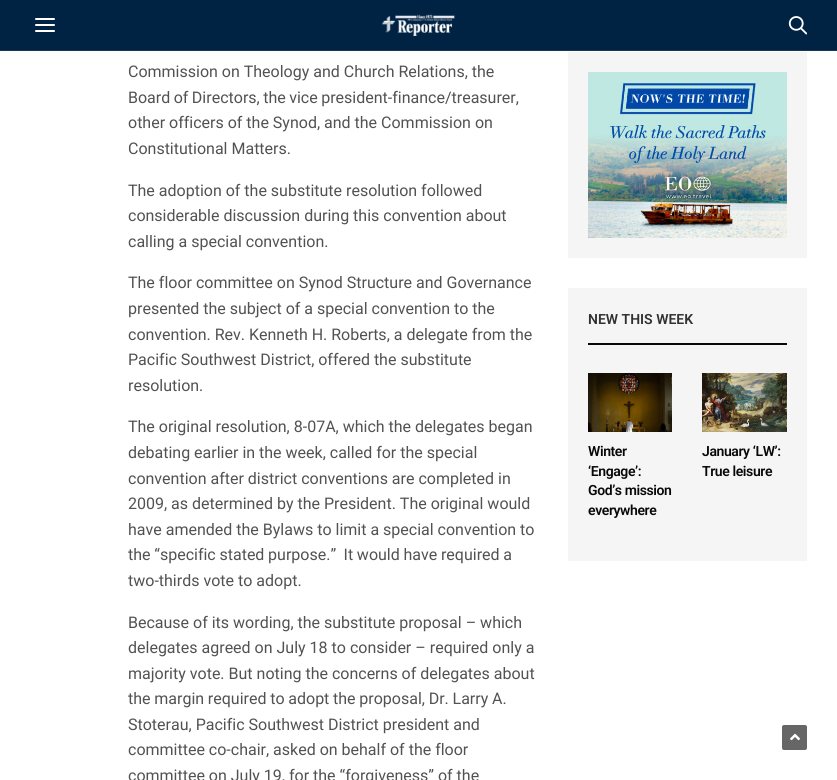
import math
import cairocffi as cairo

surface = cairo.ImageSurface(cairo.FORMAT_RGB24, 837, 780)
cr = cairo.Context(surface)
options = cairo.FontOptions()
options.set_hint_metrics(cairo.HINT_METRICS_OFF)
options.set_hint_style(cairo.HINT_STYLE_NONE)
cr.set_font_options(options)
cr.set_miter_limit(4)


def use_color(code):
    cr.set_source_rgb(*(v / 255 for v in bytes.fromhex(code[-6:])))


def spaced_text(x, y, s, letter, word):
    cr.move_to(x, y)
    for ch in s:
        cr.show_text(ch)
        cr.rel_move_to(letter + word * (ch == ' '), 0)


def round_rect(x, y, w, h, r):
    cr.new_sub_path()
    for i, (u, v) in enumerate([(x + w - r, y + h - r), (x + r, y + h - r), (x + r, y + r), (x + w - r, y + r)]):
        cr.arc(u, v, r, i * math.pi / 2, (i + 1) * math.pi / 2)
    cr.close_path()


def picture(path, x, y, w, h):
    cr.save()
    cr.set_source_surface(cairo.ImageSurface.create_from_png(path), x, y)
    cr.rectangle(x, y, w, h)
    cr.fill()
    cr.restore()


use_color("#ffffff")
cr.paint()
use_color("#002243")
cr.rectangle(0, 0, 837, 50)
cr.fill()
use_color("#1a3856")
cr.rectangle(0, 50, 837, 1)
cr.fill()
use_color("#ffffff")
round_rect(35, 18, 20, 2, 1)
cr.fill()
round_rect(35, 24, 20, 2, 1)
cr.fill()
round_rect(35, 30, 20, 2, 1)
cr.fill()
picture("img1.png", 381, 14, 74, 22)
picture("img2.png", 788, 16, 19, 19)
cr.select_font_face("Roboto")
cr.set_font_size(16)
use_color("#525252")
cr.move_to(128, 77)
cr.show_text("Commission on Theology and Church Relations, the")
spaced_text(128, 103, "Board of Directors, the vice president-finance/treasurer,", 0, -0.5)
cr.move_to(128, 128)
cr.show_text("other officers of the Synod, and the Commission on")
cr.move_to(128, 154)
cr.show_text("Constitutional Matters.")
cr.move_to(128, 196)
cr.show_text("The adoption of the substitute resolution followed")
cr.move_to(128, 221)
cr.show_text("considerable discussion during this convention about")
cr.move_to(128, 247)
cr.show_text("calling a special convention.")
cr.move_to(128, 288)
cr.show_text("The floor committee on Synod Structure and Governance")
cr.move_to(128, 314)
cr.show_text("presented the subject of a special convention to the")
cr.move_to(128, 340)
cr.show_text("convention. Rev. Kenneth H. Roberts, a delegate from the")
cr.move_to(128, 365)
cr.show_text("Pacific Southwest District, offered the substitute")
cr.move_to(128, 391)
cr.show_text("resolution.")
cr.move_to(128, 432)
cr.show_text("The original resolution, 8-07A, which the delegates began")
cr.move_to(128, 458)
cr.show_text("debating earlier in the week, called for the special")
cr.move_to(128, 484)
cr.show_text("convention after district conventions are completed in")
cr.move_to(128, 509)
cr.show_text("2009, as determined by the President. The original would")
cr.move_to(128, 535)
cr.show_text("have amended the Bylaws to limit a special convention to")
spaced_text(128, 560, "the “specific stated purpose.”  It would have required a", 0, -0.25)
cr.move_to(128, 586)
cr.show_text("two-thirds vote to adopt.")
cr.move_to(128, 628)
cr.show_text("Because of its wording, the substitute proposal – which")
cr.move_to(128, 653)
cr.show_text("delegates agreed on July 18 to consider – required only a")
cr.move_to(128, 679)
cr.show_text("majority vote. But noting the concerns of delegates about")
spaced_text(128, 704, "the margin required to adopt the proposal, Dr. Larry A.", 0, -0.25)
cr.move_to(128, 730)
cr.show_text("Stoterau, Pacific Southwest District president and")
cr.move_to(128, 755)
cr.show_text("committee co-chair, asked on behalf of the floor")
cr.move_to(128, 781)
cr.show_text("committee on July 19, for the “forgiveness” of the")
use_color("#f5f5f5")
cr.rectangle(568, 52, 239, 206)
cr.fill()
picture("img3.png", 588, 72, 199, 166)
cr.rectangle(568, 288, 239, 273)
cr.fill()
use_color("#080808")
cr.rectangle(588, 343, 199, 2)
cr.fill()
cr.select_font_face("Roboto SemiBold")
cr.set_font_size(14)
use_color("#313131")
cr.move_to(588, 324)
cr.show_text("NEW THIS WEEK")
picture("img4.png", 588, 373, 84, 59)
use_color("#080808")
spaced_text(588, 456, "Winter", -0.4, 0)
spaced_text(588, 476, "‘Engage’:", -0.4, 0)
spaced_text(588, 495, "God’s mission", -0.4, 0)
spaced_text(588, 515, "everywhere", -0.4, 0)
picture("img5.png", 702, 373, 85, 59)
spaced_text(702, 456, "January ‘LW’:", -0.4, 0)
spaced_text(702, 476, "True leisure", -0.4, 0)
use_color("#666666")
round_rect(782, 725, 25, 25, 2)
cr.fill()
picture("img6.png", 790, 733, 10, 8)
surface.write_to_png("result.png")
